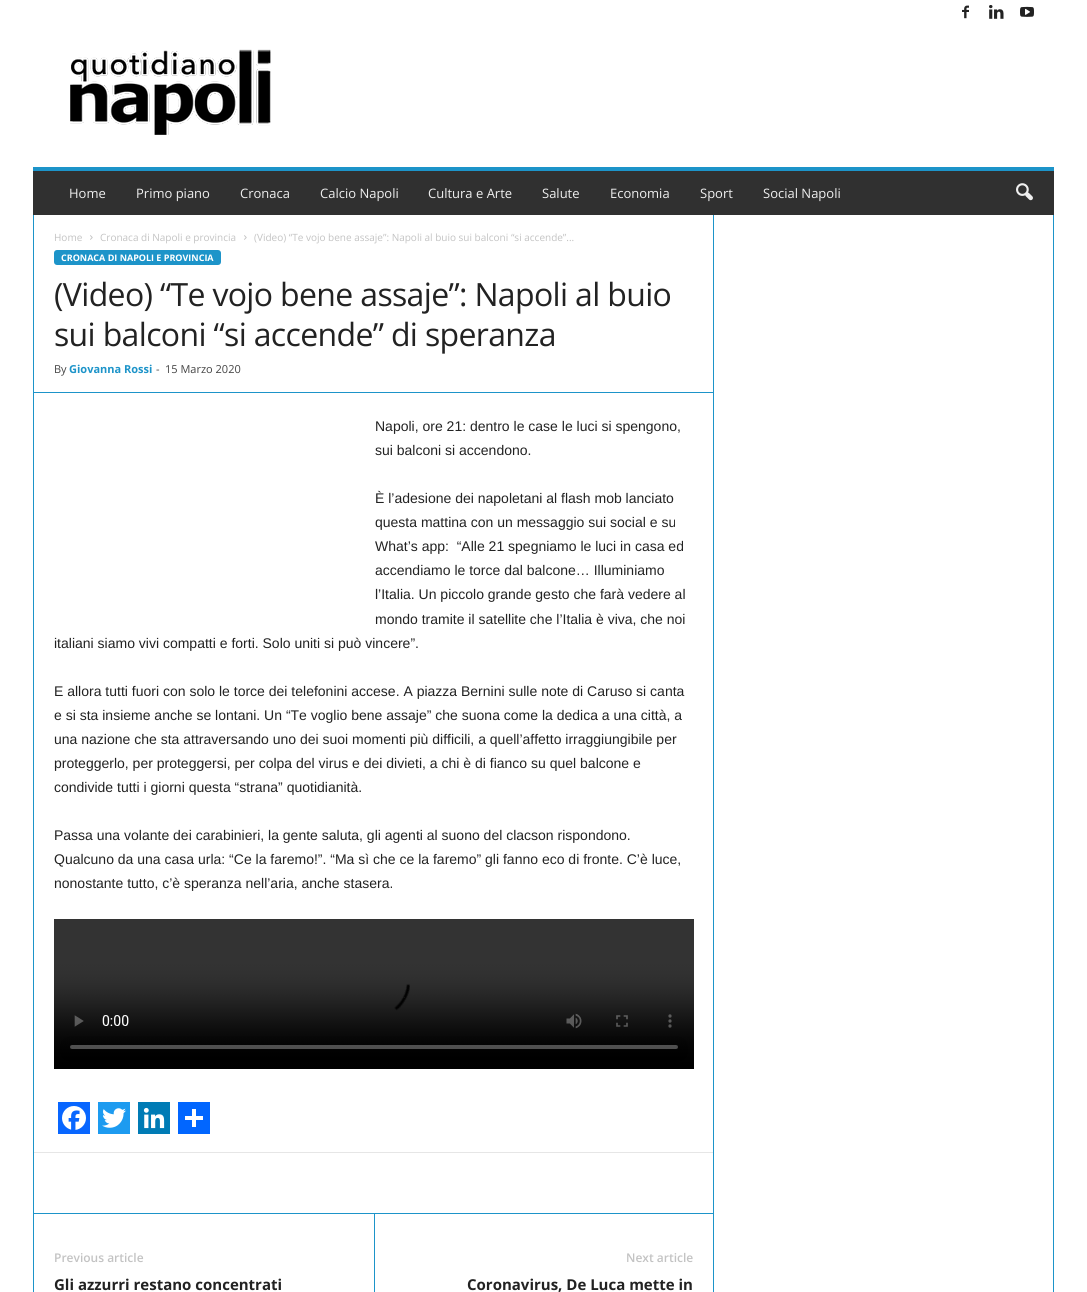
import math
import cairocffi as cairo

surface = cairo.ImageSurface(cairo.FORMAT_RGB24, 1087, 1292)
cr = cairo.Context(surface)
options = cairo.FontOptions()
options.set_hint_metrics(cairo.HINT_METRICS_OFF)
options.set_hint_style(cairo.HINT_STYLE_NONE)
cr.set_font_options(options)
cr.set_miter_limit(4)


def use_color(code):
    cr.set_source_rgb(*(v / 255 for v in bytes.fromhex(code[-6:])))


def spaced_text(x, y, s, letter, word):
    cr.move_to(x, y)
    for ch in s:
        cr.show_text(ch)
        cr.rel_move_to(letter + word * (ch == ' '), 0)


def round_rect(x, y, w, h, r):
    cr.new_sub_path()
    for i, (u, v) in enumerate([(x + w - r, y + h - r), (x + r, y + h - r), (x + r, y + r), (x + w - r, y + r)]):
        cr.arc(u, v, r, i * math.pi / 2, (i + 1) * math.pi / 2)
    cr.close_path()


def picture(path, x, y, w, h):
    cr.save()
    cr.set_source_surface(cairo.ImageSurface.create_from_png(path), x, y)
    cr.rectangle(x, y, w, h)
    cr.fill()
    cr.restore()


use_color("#ffffff")
cr.paint()
picture("img1.png", 962, 5, 7, 14)
picture("img2.png", 989, 5, 15, 14)
picture("img3.png", 1020, 6, 14, 11)
picture("img4.png", 70, 49, 201, 86)
use_color("#303030")
cr.rectangle(33, 171, 1021, 44)
cr.fill()
use_color("#1d94c9")
cr.rectangle(33, 167, 1021, 4)
cr.fill()
cr.select_font_face("Open Sans")
cr.set_font_size(13)
use_color("#efefef")
cr.move_to(69, 198)
cr.show_text("Home")
cr.move_to(136, 198)
cr.show_text("Primo piano")
cr.move_to(240, 198)
cr.show_text("Cronaca")
cr.move_to(320, 198)
cr.show_text("Calcio Napoli")
cr.move_to(428, 198)
cr.show_text("Cultura e Arte")
cr.move_to(542, 198)
cr.show_text("Salute")
cr.move_to(610, 198)
cr.show_text("Economia")
cr.move_to(700, 198)
cr.show_text("Sport")
cr.move_to(763, 198)
cr.show_text("Social Napoli")
picture("img5.png", 1016, 183, 17, 18)
use_color("#1d94c9")
cr.rectangle(33, 215, 1, 1077)
cr.fill()
cr.set_font_size(10)
use_color("#c3c3c3")
cr.move_to(54, 241)
cr.show_text("Home")
picture("img6.png", 90, 235, 3, 5)
cr.move_to(100, 241)
cr.show_text("Cronaca di Napoli e provincia")
picture("img6.png", 244, 235, 3, 5)
cr.move_to(254, 241)
cr.show_text("(Video) “Te vojo bene assaje”: Napoli al buio sui balconi “si accende”...")
use_color("#1d94c9")
round_rect(54, 250, 167, 15, 3)
cr.fill()
cr.select_font_face("Open Sans", cairo.FONT_SLANT_NORMAL, cairo.FONT_WEIGHT_BOLD)
cr.set_font_size(9)
use_color("#ffffff")
cr.move_to(61, 261)
cr.show_text("CRONACA DI NAPOLI E PROVINCIA")
cr.select_font_face("Open Sans")
cr.set_font_size(32)
use_color("#222222")
spaced_text(54, 306, "(Video) “Te vojo bene assaje”: Napoli al buio", -0.65, 0)
spaced_text(54, 346, "sui balconi “si accende” di speranza", -0.65, 0)
cr.set_font_size(11)
use_color("#444444")
cr.move_to(54, 373)
cr.show_text("By")
cr.select_font_face("Open Sans", cairo.FONT_SLANT_NORMAL, cairo.FONT_WEIGHT_BOLD)
use_color("#1d94c9")
cr.move_to(69, 373)
cr.show_text("Giovanna Rossi")
cr.select_font_face("Open Sans")
use_color("#444444")
cr.move_to(156, 373)
cr.show_text("-")
cr.move_to(165, 373)
cr.show_text("15 Marzo 2020")
use_color("#1d94c9")
cr.rectangle(34, 392, 679, 1)
cr.fill()
cr.select_font_face("Liberation Sans")
cr.set_font_size(14)
use_color("#222222")
cr.move_to(375, 431)
cr.show_text("Napoli, ore 21: dentro le case le luci si spengono,")
cr.move_to(375, 455)
cr.show_text("sui balconi si accendono.")
cr.move_to(375, 503)
cr.show_text("È l’adesione dei napoletani al flash mob lanciato")
cr.move_to(375, 527)
cr.show_text("questa mattina con un messaggio sui social e su")
cr.move_to(375, 551)
cr.show_text("What’s app:  “Alle 21 spegniamo le luci in casa ed")
cr.move_to(375, 575)
cr.show_text("accendiamo le torce dal balcone… Illuminiamo")
cr.move_to(375, 599)
cr.show_text("l’Italia. Un piccolo grande gesto che farà vedere al")
cr.move_to(375, 624)
cr.show_text("mondo tramite il satellite che l’Italia è viva, che noi")
cr.move_to(54, 648)
cr.show_text("italiani siamo vivi compatti e forti. Solo uniti si può vincere”.")
cr.move_to(54, 696)
cr.show_text("E allora tutti fuori con solo le torce dei telefonini accese. A piazza Bernini sulle note di Caruso si canta")
cr.move_to(54, 720)
cr.show_text("e si sta insieme anche se lontani. Un “Te voglio bene assaje” che suona come la dedica a una città, a")
cr.move_to(54, 744)
cr.show_text("una nazione che sta attraversando uno dei suoi momenti più difficili, a quell’affetto irraggiungibile per")
cr.move_to(54, 768)
cr.show_text("proteggerlo, per proteggersi, per colpa del virus e dei divieti, a chi è di fianco su quel balcone e")
cr.move_to(54, 792)
cr.show_text("condivide tutti i giorni questa “strana” quotidianità.")
cr.move_to(54, 840)
cr.show_text("Passa una volante dei carabinieri, la gente saluta, gli agenti al suono del clacson rispondono.")
cr.move_to(54, 864)
cr.show_text("Qualcuno da una casa urla: “Ce la faremo!”. “Ma sì che ce la faremo” gli fanno eco di fronte. C’è luce,")
cr.move_to(54, 888)
cr.show_text("nonostante tutto, c’è speranza nell’aria, anche stasera.")
picture("img7.png", 54, 919, 640, 150)
use_color("#0866ff")
cr.rectangle(58, 1102, 32, 32)
cr.fill()
picture("img8.png", 62, 1106, 24, 24)
use_color("#1d9bf0")
cr.rectangle(98, 1102, 32, 32)
cr.fill()
picture("img9.png", 102, 1108, 24, 20)
use_color("#007bb5")
cr.rectangle(138, 1102, 32, 32)
cr.fill()
picture("img10.png", 143, 1107, 22, 22)
use_color("#0166ff")
cr.rectangle(178, 1102, 32, 32)
cr.fill()
use_color("#ffffff")
cr.rectangle(192, 1109, 4, 18)
cr.fill()
cr.rectangle(185, 1116, 18, 4)
cr.fill()
use_color("#e6e6e6")
cr.rectangle(34, 1152, 679, 1)
cr.fill()
use_color("#1d94c9")
cr.rectangle(34, 1213, 679, 1)
cr.fill()
cr.select_font_face("Open Sans SemiBold")
cr.set_font_size(12)
use_color("#c3c3c3")
cr.move_to(54, 1262)
cr.show_text("Previous article")
cr.select_font_face("Open Sans", cairo.FONT_SLANT_NORMAL, cairo.FONT_WEIGHT_BOLD)
cr.set_font_size(15)
use_color("#222222")
cr.move_to(54, 1290)
cr.show_text("Gli azzurri restano concentrati")
use_color("#1d94c9")
cr.rectangle(374, 1214, 1, 78)
cr.fill()
cr.select_font_face("Open Sans SemiBold")
cr.set_font_size(12)
use_color("#c3c3c3")
cr.move_to(626, 1262)
cr.show_text("Next article")
cr.select_font_face("Open Sans", cairo.FONT_SLANT_NORMAL, cairo.FONT_WEIGHT_BOLD)
cr.set_font_size(15)
use_color("#222222")
cr.move_to(467, 1290)
cr.show_text("Coronavirus, De Luca mette in")
use_color("#1d94c9")
cr.rectangle(713, 215, 1, 1077)
cr.fill()
cr.rectangle(1053, 215, 1, 1077)
cr.fill()
surface.write_to_png("result.png")
